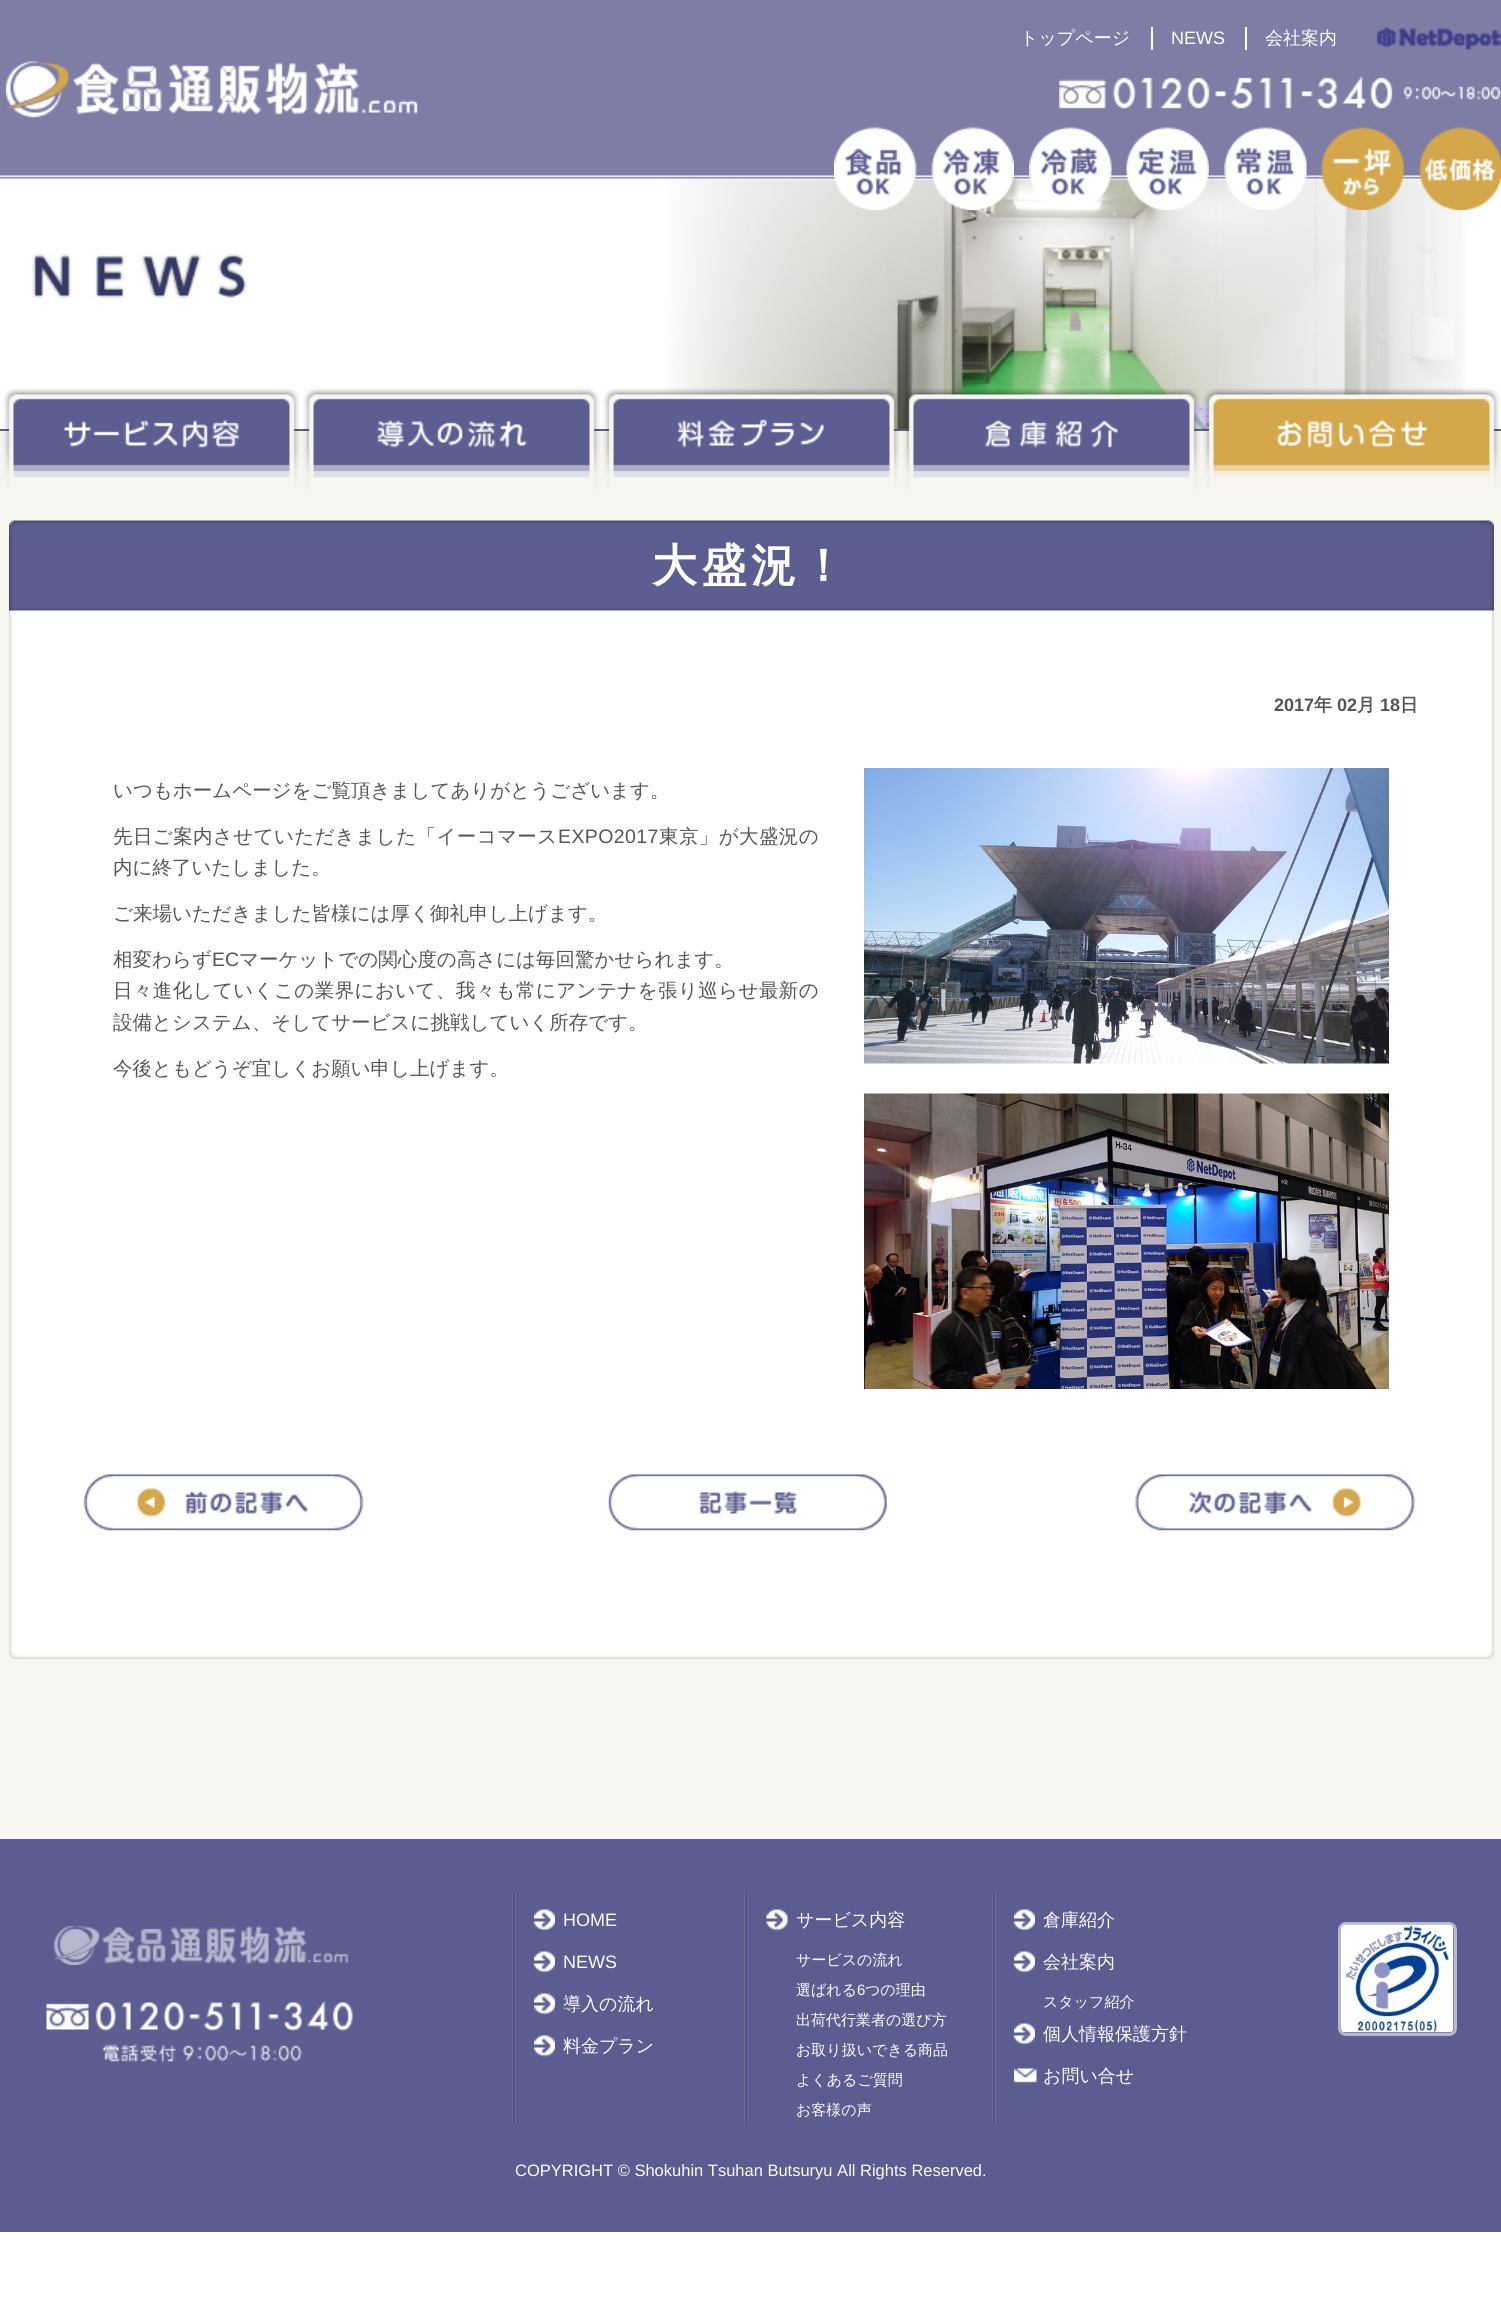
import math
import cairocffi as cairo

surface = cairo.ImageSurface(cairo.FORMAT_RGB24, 1501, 2314)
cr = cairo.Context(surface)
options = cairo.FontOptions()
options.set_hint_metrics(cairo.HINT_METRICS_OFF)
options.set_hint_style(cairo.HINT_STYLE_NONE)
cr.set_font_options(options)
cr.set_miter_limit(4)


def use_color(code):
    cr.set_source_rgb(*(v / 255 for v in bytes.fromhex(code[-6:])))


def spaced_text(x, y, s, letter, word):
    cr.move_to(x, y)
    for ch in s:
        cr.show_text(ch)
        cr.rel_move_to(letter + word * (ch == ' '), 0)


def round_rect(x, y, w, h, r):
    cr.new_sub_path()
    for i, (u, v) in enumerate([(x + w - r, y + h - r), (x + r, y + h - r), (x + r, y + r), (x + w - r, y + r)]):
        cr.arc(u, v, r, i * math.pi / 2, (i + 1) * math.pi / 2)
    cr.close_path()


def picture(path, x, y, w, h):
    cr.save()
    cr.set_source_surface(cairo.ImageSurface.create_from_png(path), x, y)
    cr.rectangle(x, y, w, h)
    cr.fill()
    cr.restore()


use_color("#ffffff")
cr.paint()
picture("img1.png", 31, 176, 1434, 253)
picture("img2.png", 0, 0, 1501, 179)
cr.select_font_face("WenQuanYi Zen Hei Medium")
cr.set_font_size(18)
use_color("#ffffff")
cr.move_to(1020, 44)
cr.show_text("トップページ")
cr.rectangle(1151, 27, 2, 23)
cr.fill()
cr.select_font_face("Liberation Sans")
cr.move_to(1171, 44)
cr.show_text("NEWS")
cr.rectangle(1245, 27, 2, 23)
cr.fill()
cr.select_font_face("WenQuanYi Zen Hei Medium")
cr.move_to(1265, 44)
cr.show_text("会社案内")
picture("img3.png", 1377, 27, 124, 23)
picture("img4.png", 1059, 76, 442, 33)
picture("img5.png", 834, 127, 83, 83)
picture("img6.png", 931, 127, 83, 83)
picture("img7.png", 1029, 127, 83, 83)
picture("img8.png", 1126, 127, 83, 83)
picture("img9.png", 1224, 127, 83, 83)
picture("img10.png", 1321, 127, 83, 83)
picture("img11.png", 1419, 127, 82, 83)
picture("img12.png", 5, 61, 413, 57)
use_color("#f7f5f0")
cr.rectangle(0, 431, 1501, 1408)
cr.fill()
use_color("#5b5c8f")
cr.rectangle(0, 429, 1501, 2)
cr.fill()
picture("img13.png", 3, 388, 297, 101)
picture("img14.png", 303, 388, 297, 101)
picture("img15.png", 603, 388, 297, 101)
picture("img16.png", 903, 388, 297, 101)
picture("img17.png", 1203, 388, 297, 101)
picture("img18.png", 9, 520, 1485, 1131)
picture("img19.png", 9, 1651, 1485, 8)
picture("img20.png", 9, 520, 1485, 91)
cr.select_font_face("WenQuanYi Zen Hei", cairo.FONT_SLANT_NORMAL, cairo.FONT_WEIGHT_BOLD)
cr.set_font_size(45)
use_color("#ffffff")
spaced_text(652, 581, "大盛況！", 4.5, 0)
cr.select_font_face("Liberation Sans", cairo.FONT_SLANT_NORMAL, cairo.FONT_WEIGHT_BOLD)
cr.set_font_size(18)
use_color("#555555")
cr.move_to(1274, 711)
cr.show_text("2017")
cr.select_font_face("WenQuanYi Zen Hei", cairo.FONT_SLANT_NORMAL, cairo.FONT_WEIGHT_BOLD)
cr.move_to(1314, 711)
cr.show_text("年")
cr.select_font_face("Liberation Sans", cairo.FONT_SLANT_NORMAL, cairo.FONT_WEIGHT_BOLD)
cr.move_to(1337, 711)
cr.show_text("02")
cr.select_font_face("WenQuanYi Zen Hei", cairo.FONT_SLANT_NORMAL, cairo.FONT_WEIGHT_BOLD)
cr.move_to(1357, 711)
cr.show_text("月")
cr.select_font_face("Liberation Sans", cairo.FONT_SLANT_NORMAL, cairo.FONT_WEIGHT_BOLD)
cr.move_to(1380, 711)
cr.show_text("18")
cr.select_font_face("WenQuanYi Zen Hei", cairo.FONT_SLANT_NORMAL, cairo.FONT_WEIGHT_BOLD)
cr.move_to(1400, 711)
cr.show_text("日")
cr.select_font_face("WenQuanYi Zen Hei Medium")
cr.set_font_size(19.5)
cr.move_to(113, 797)
cr.show_text("いつもホームページをご覧頂きましてありがとうございます。")
spaced_text(113, 843, "先日ご案内させていただきました「イーコマース", 0.4, 0)
cr.select_font_face("Liberation Sans")
spaced_text(558, 843, "EXPO2017", 0.4, 0)
cr.select_font_face("WenQuanYi Zen Hei Medium")
spaced_text(659, 843, "東京」が大盛況の", 0.4, 0)
cr.move_to(113, 874)
cr.show_text("内に終了いたしました。")
cr.move_to(113, 920)
cr.show_text("ご来場いただきました皆様には厚く御礼申し上げます。")
cr.move_to(113, 966)
cr.show_text("相変わらず")
cr.select_font_face("Liberation Sans")
cr.move_to(212, 966)
cr.show_text("EC")
cr.select_font_face("WenQuanYi Zen Hei Medium")
cr.move_to(239, 966)
cr.show_text("マーケットでの関心度の高さには毎回驚かせられます。")
spaced_text(113, 997, "日々進化していくこの業界において、我々も常にアンテナを張り巡らせ最新の", 0.4, 0)
cr.move_to(113, 1029)
cr.show_text("設備とシステム、そしてサービスに挑戦していく所存です。")
cr.move_to(113, 1075)
cr.show_text("今後ともどうぞ宜しくお願い申し上げます。")
picture("img21.png", 864, 768, 525, 296)
picture("img22.png", 864, 1093, 525, 296)
picture("img23.png", 84, 1474, 280, 57)
picture("img24.png", 607, 1474, 280, 57)
picture("img25.png", 1135, 1474, 280, 57)
use_color("#5b5c8f")
cr.rectangle(0, 1839, 1501, 393)
cr.fill()
picture("img26.png", 53, 1926, 295, 39)
picture("img27.png", 46, 2001, 307, 62)
picture("img28.png", 512, 1891, 4, 233)
picture("img29.png", 534, 1909, 21, 22)
cr.select_font_face("Liberation Sans")
cr.set_font_size(18)
use_color("#ffffff")
cr.move_to(563, 1926)
cr.show_text("HOME")
picture("img29.png", 534, 1951, 21, 22)
cr.move_to(563, 1968)
cr.show_text("NEWS")
picture("img29.png", 534, 1993, 21, 22)
cr.select_font_face("WenQuanYi Zen Hei Medium")
cr.move_to(563, 2010)
cr.show_text("導入の流れ")
picture("img29.png", 534, 2035, 21, 22)
cr.move_to(563, 2052)
cr.show_text("料金プラン")
picture("img30.png", 744, 1891, 4, 233)
picture("img31.png", 766, 1909, 22, 22)
cr.move_to(796, 1926)
cr.show_text("サービス内容")
cr.set_font_size(15)
cr.move_to(796, 1965)
cr.show_text("サービスの流れ")
cr.move_to(796, 1995)
cr.show_text("選ばれる")
cr.select_font_face("Liberation Sans")
cr.move_to(857, 1995)
cr.show_text("6")
cr.select_font_face("WenQuanYi Zen Hei Medium")
cr.move_to(865, 1995)
cr.show_text("つの理由")
cr.move_to(796, 2025)
cr.show_text("出荷代行業者の選び方")
cr.move_to(796, 2055)
cr.show_text("お取り扱いできる商品")
cr.move_to(796, 2085)
cr.show_text("よくあるご質問")
cr.move_to(796, 2115)
cr.show_text("お客様の声")
picture("img32.png", 992, 1891, 4, 233)
picture("img29.png", 1014, 1909, 21, 22)
cr.set_font_size(18)
cr.move_to(1043, 1926)
cr.show_text("倉庫紹介")
picture("img29.png", 1014, 1951, 21, 22)
cr.move_to(1043, 1968)
cr.show_text("会社案内")
cr.set_font_size(15)
cr.move_to(1043, 2007)
cr.show_text("スタッフ紹介")
picture("img29.png", 1014, 2023, 21, 22)
cr.set_font_size(18)
cr.move_to(1043, 2040)
cr.show_text("個人情報保護方針")
picture("img33.png", 1014, 2068, 23, 15)
cr.move_to(1043, 2082)
cr.show_text("お問い合せ")
round_rect(1339.5, 1923.5, 116, 111, 6.5)
use_color("#b7b8ce")
cr.set_line_width(3)
cr.stroke()
picture("img34.png", 1341, 1924, 113, 109)
cr.select_font_face("Liberation Sans")
cr.set_font_size(16.5)
use_color("#ffffff")
cr.move_to(515, 2176)
cr.show_text("COPYRIGHT © Shokuhin Tsuhan Butsuryu All Rights Reserved.")
surface.write_to_png("result.png")
